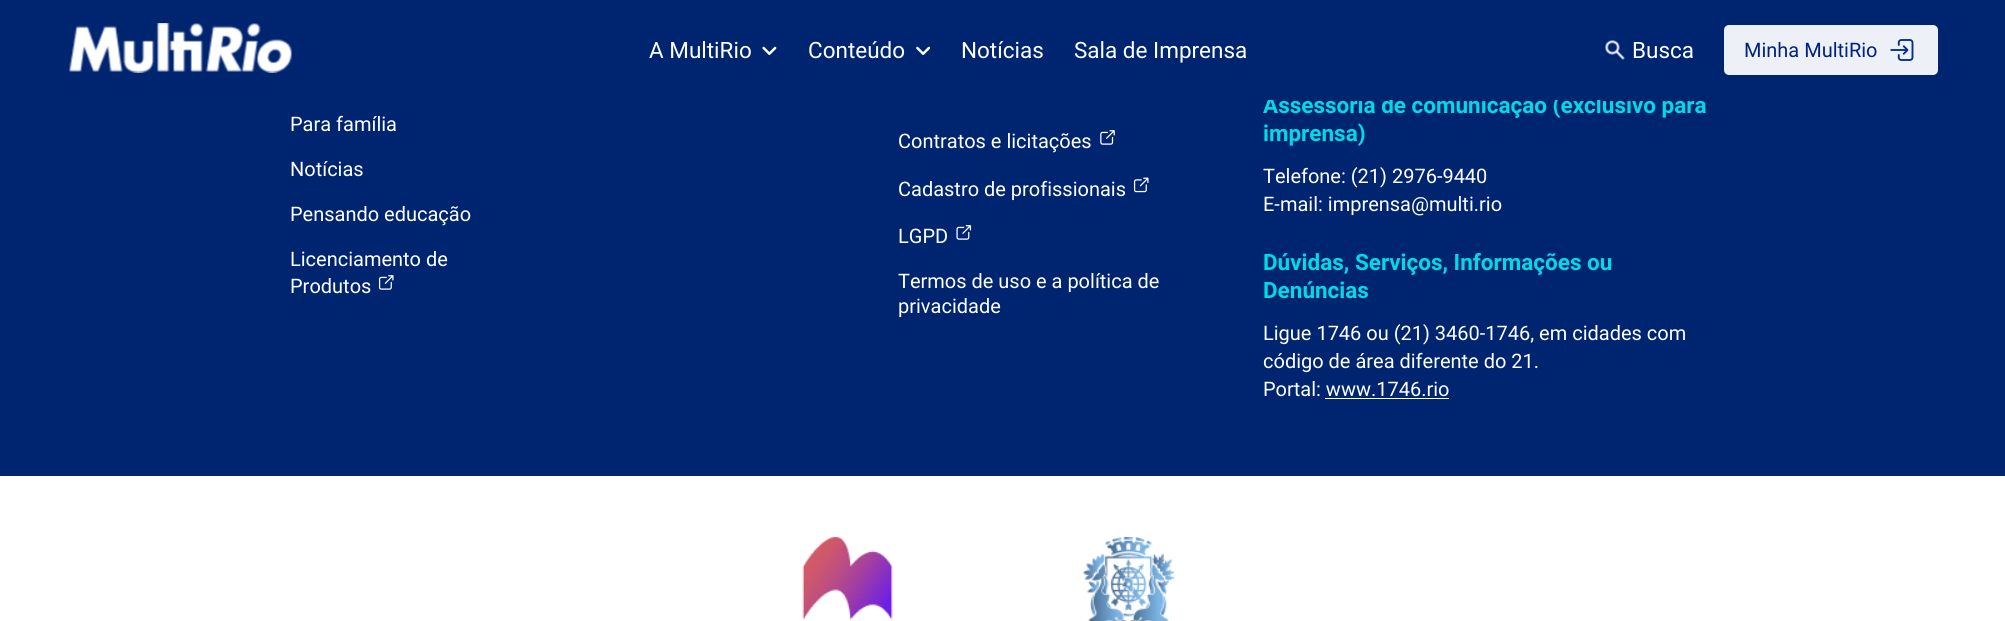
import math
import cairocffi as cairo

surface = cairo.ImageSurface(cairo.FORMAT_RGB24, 2005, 621)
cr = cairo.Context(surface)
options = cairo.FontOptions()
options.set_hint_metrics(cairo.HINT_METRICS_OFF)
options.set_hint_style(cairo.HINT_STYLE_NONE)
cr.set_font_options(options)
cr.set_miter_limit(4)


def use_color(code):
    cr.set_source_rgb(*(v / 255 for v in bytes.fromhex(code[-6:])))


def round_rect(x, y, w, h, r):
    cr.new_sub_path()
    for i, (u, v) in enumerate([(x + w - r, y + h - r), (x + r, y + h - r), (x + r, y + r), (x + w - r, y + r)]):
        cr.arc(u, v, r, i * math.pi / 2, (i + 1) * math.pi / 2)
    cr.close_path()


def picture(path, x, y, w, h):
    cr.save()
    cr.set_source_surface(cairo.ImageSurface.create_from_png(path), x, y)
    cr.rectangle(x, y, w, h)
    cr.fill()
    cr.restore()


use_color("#ffffff")
cr.paint()
use_color("#002570")
cr.rectangle(0, 100, 2005, 376)
cr.fill()
cr.select_font_face("Roboto", cairo.FONT_SLANT_NORMAL, cairo.FONT_WEIGHT_BOLD)
cr.set_font_size(22.5)
use_color("#00d9e6")
cr.move_to(1263, 113)
cr.show_text("Assessoria de comunicação (exclusivo para")
use_color("#002570")
cr.rectangle(0, 0, 2005, 100)
cr.fill()
picture("img1.png", 68, 23, 224, 50)
cr.select_font_face("Roboto")
use_color("#ffffff")
cr.move_to(649, 58)
cr.show_text("A MultiRio")
picture("img2.png", 762, 46, 15, 9)
cr.move_to(808, 58)
cr.show_text("Conteúdo")
picture("img3.png", 916, 46, 15, 9)
cr.move_to(961, 58)
cr.show_text("Notícias")
cr.move_to(1074, 58)
cr.show_text("Sala de Imprensa")
picture("img4.png", 1605, 40, 20, 20)
cr.move_to(1632, 58)
cr.show_text("Busca")
use_color("#edf1f7")
round_rect(1724, 25, 214, 50, 5)
cr.fill()
cr.set_font_size(20)
use_color("#00227f")
cr.move_to(1744, 57)
cr.show_text("Minha MultiRio")
picture("img5.png", 1890, 39, 24, 22)
use_color("#ffffff")
cr.move_to(290, 131)
cr.show_text("Para família")
cr.move_to(290, 176)
cr.show_text("Notícias")
cr.move_to(290, 221)
cr.show_text("Pensando educação")
cr.move_to(290, 266)
cr.show_text("Licenciamento de")
cr.move_to(290, 293)
cr.show_text("Produtos")
picture("img6.png", 378, 275, 16, 15)
cr.move_to(898, 148)
cr.show_text("Contratos e licitações")
picture("img7.png", 1100, 130, 15, 15)
cr.move_to(898, 196)
cr.show_text("Cadastro de profissionais")
picture("img8.png", 1133, 177, 16, 16)
cr.move_to(898, 243)
cr.show_text("LGPD")
picture("img9.png", 956, 225, 16, 15)
cr.move_to(898, 288)
cr.show_text("Termos de uso e a política de")
cr.move_to(898, 313)
cr.show_text("privacidade")
cr.select_font_face("Roboto", cairo.FONT_SLANT_NORMAL, cairo.FONT_WEIGHT_BOLD)
cr.set_font_size(22.5)
use_color("#00d9e6")
cr.move_to(1263, 141)
cr.show_text("imprensa)")
cr.select_font_face("Roboto")
cr.set_font_size(20)
use_color("#ffffff")
cr.move_to(1263, 183)
cr.show_text("Telefone: (21) 2976-9440")
cr.move_to(1263, 211)
cr.show_text("E-mail: imprensa@multi.rio")
cr.select_font_face("Roboto", cairo.FONT_SLANT_NORMAL, cairo.FONT_WEIGHT_BOLD)
cr.set_font_size(22.5)
use_color("#00d9e6")
cr.move_to(1263, 270)
cr.show_text("Dúvidas, Serviços, Informações ou")
cr.move_to(1263, 298)
cr.show_text("Denúncias")
cr.select_font_face("Roboto")
cr.set_font_size(20)
use_color("#ffffff")
cr.move_to(1263, 340)
cr.show_text("Ligue 1746 ou (21) 3460-1746, em cidades com")
cr.move_to(1263, 368)
cr.show_text("código de área diferente do 21.")
cr.move_to(1263, 396)
cr.show_text("Portal: www.1746.rio")
cr.rectangle(1325, 398, 124, 1)
cr.fill()
picture("img10.png", 802, 536, 91, 84)
picture("img11.png", 1082, 536, 93, 85)
surface.write_to_png("result.png")
